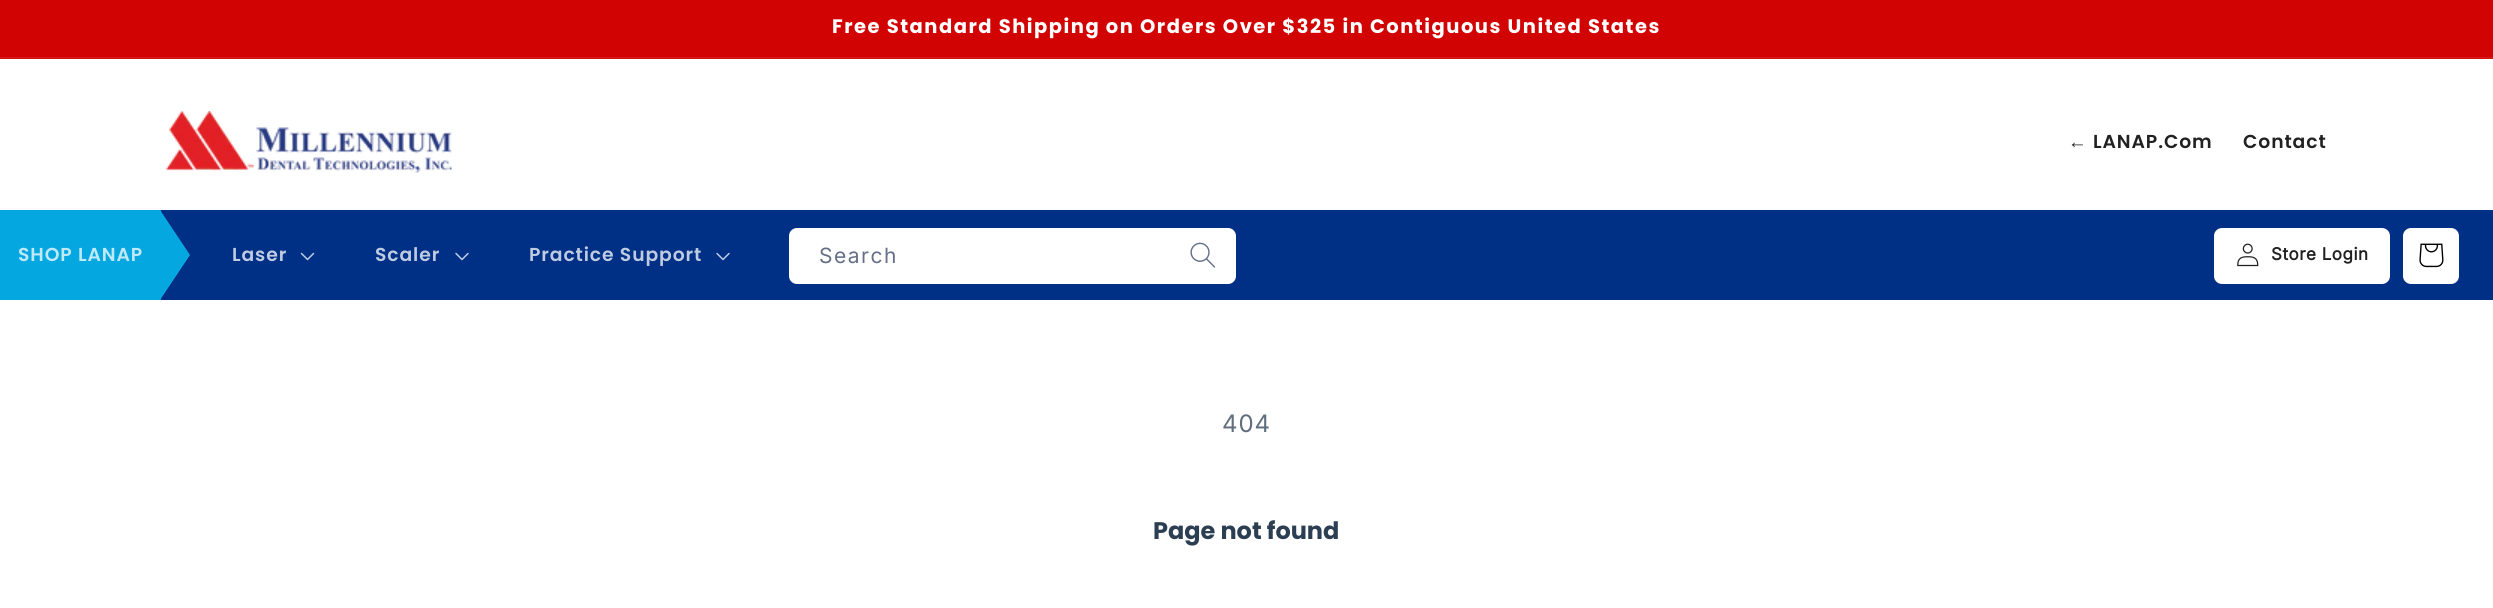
import math
import cairocffi as cairo

surface = cairo.ImageSurface(cairo.FORMAT_RGB24, 2493, 608)
cr = cairo.Context(surface)
options = cairo.FontOptions()
options.set_hint_metrics(cairo.HINT_METRICS_OFF)
options.set_hint_style(cairo.HINT_STYLE_NONE)
cr.set_font_options(options)
cr.set_miter_limit(4)


def use_color(code):
    cr.set_source_rgb(*(v / 255 for v in bytes.fromhex(code[-6:])))


def spaced_text(x, y, s, letter, word):
    cr.move_to(x, y)
    for ch in s:
        cr.show_text(ch)
        cr.rel_move_to(letter + word * (ch == ' '), 0)


def round_rect(x, y, w, h, r):
    cr.new_sub_path()
    for i, (u, v) in enumerate([(x + w - r, y + h - r), (x + r, y + h - r), (x + r, y + r), (x + w - r, y + r)]):
        cr.arc(u, v, r, i * math.pi / 2, (i + 1) * math.pi / 2)
    cr.close_path()


def picture(path, x, y, w, h):
    cr.save()
    cr.set_source_surface(cairo.ImageSurface.create_from_png(path), x, y)
    cr.rectangle(x, y, w, h)
    cr.fill()
    cr.restore()


use_color("#ffffff")
cr.paint()
use_color("#d20303")
cr.rectangle(0, 0, 2493, 57)
cr.fill()
use_color("#d61717")
cr.rectangle(0, 57, 2493, 2)
cr.fill()
cr.select_font_face("Poppins", cairo.FONT_SLANT_NORMAL, cairo.FONT_WEIGHT_BOLD)
cr.set_font_size(19.5)
use_color("#ffffff")
spaced_text(832, 33, "Free Standard Shipping on Orders Over $325 in Contiguous United States", 1.5, 0)
picture("img1.png", 166, 111, 286, 62)
cr.select_font_face("Liberation Sans")
cr.set_font_size(18.75)
use_color("#212121")
spaced_text(2068, 148, "←", 0.9, 0)
cr.select_font_face("Poppins SemiBold")
spaced_text(2093, 148, "LANAP.Com", 0.9, 0)
spaced_text(2243, 148, "Contact", 0.9, 0)
use_color("#002f86")
cr.rectangle(161, 210, 2332, 90)
cr.fill()
use_color("#04a7e0")
cr.rectangle(0, 210, 161, 90)
cr.fill()
use_color("#c0e9f7")
spaced_text(18, 261, "SHOP LANAP", 0.9, 0)
use_color("#04a7e0")
cr.new_path()
cr.move_to(160, 300)
cr.line_to(160, 210)
cr.line_to(190, 255)
cr.close_path()
cr.fill()
use_color("#bfcbe1")
spaced_text(232, 261, "Laser", 0.9, 0)
picture("img2.png", 300, 252, 15, 9)
spaced_text(375, 261, "Scaler", 0.9, 0)
picture("img3.png", 455, 252, 14, 9)
spaced_text(529, 261, "Practice Support", 0.9, 0)
picture("img3.png", 716, 252, 14, 9)
use_color("#ffffff")
round_rect(789, 228, 447, 56, 8)
cr.fill()
cr.select_font_face("Inter")
cr.set_font_size(21)
use_color("#656f87")
spaced_text(819, 263, "Search", 1.5, 0)
picture("img4.png", 1190, 242, 26, 26)
use_color("#ffffff")
round_rect(2214, 228, 176, 56, 8)
cr.fill()
picture("img5.png", 2237, 243, 22, 24)
cr.select_font_face("Inter", cairo.FONT_SLANT_NORMAL, cairo.FONT_WEIGHT_BOLD)
cr.set_font_size(17)
use_color("#212121")
spaced_text(2271, 260, "Store Login", 0.5, 0)
use_color("#ffffff")
round_rect(2403, 228, 56, 56, 8)
cr.fill()
picture("img6.png", 2419, 243, 25, 25)
cr.select_font_face("Inter")
cr.set_font_size(24)
use_color("#606e7d")
spaced_text(1222, 432, "404", 0.9, 0)
cr.select_font_face("Poppins", cairo.FONT_SLANT_NORMAL, cairo.FONT_WEIGHT_BOLD)
use_color("#2b3e52")
cr.move_to(1153, 539)
cr.show_text("Page not found")
surface.write_to_png("result.png")
